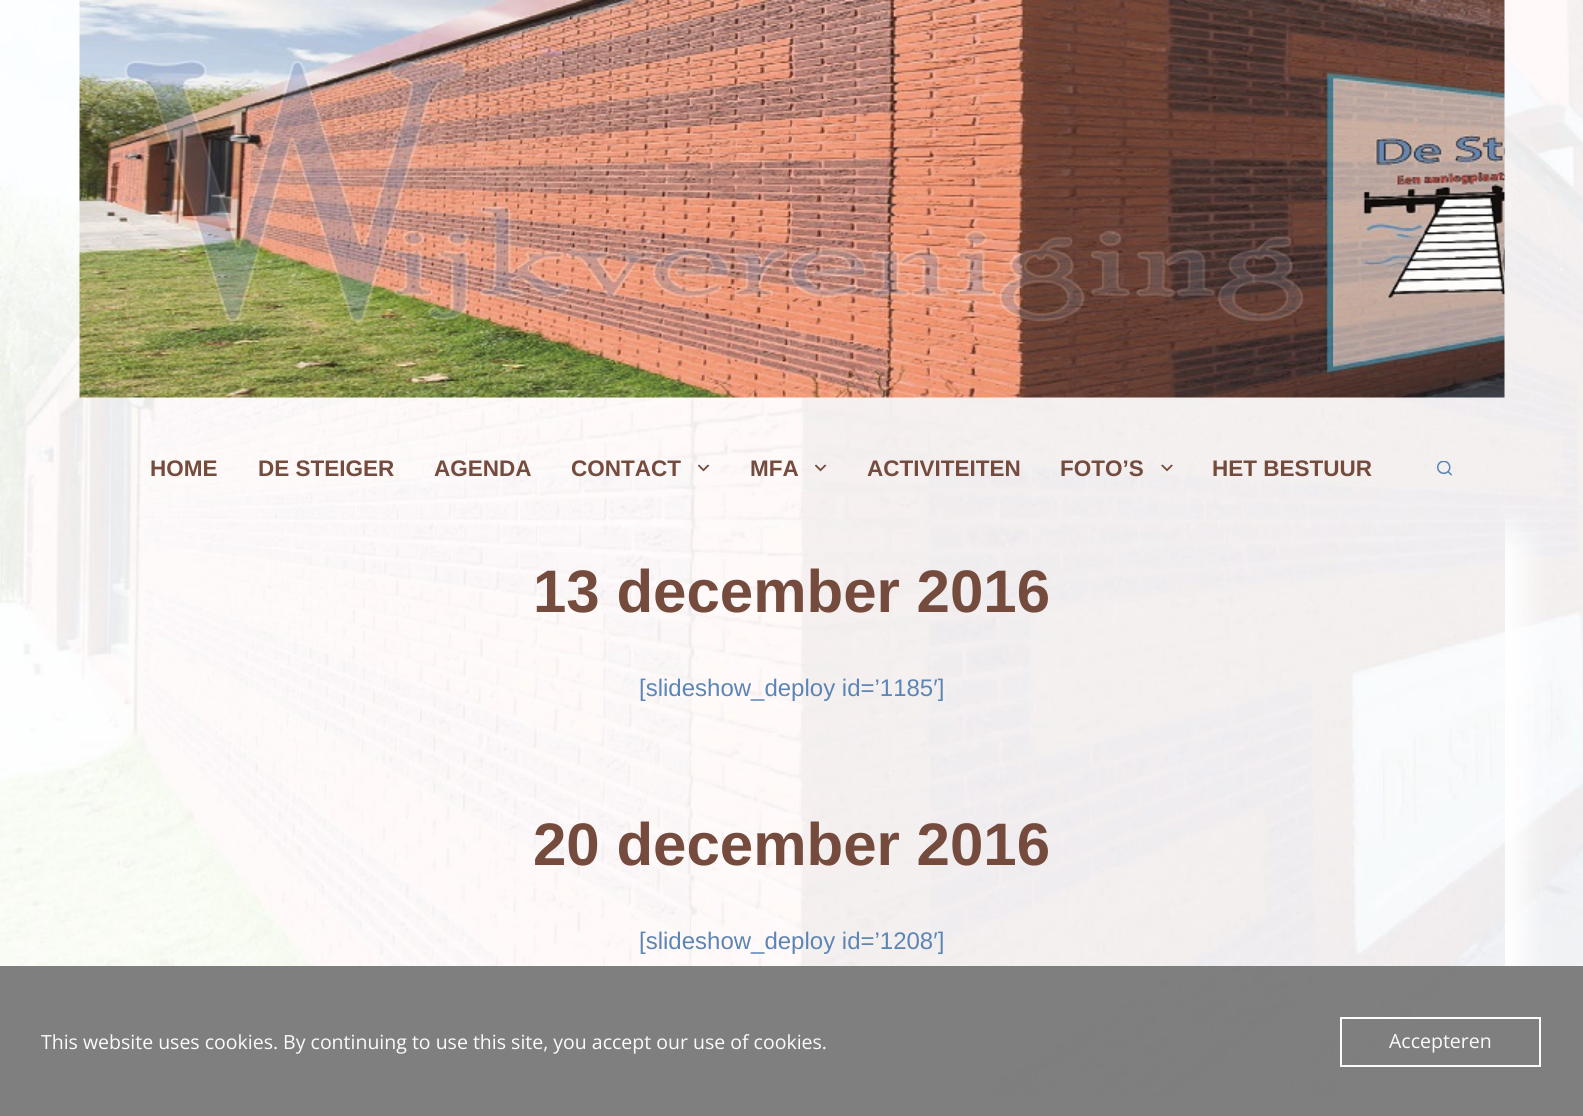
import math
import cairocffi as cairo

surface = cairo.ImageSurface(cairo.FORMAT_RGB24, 1583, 1116)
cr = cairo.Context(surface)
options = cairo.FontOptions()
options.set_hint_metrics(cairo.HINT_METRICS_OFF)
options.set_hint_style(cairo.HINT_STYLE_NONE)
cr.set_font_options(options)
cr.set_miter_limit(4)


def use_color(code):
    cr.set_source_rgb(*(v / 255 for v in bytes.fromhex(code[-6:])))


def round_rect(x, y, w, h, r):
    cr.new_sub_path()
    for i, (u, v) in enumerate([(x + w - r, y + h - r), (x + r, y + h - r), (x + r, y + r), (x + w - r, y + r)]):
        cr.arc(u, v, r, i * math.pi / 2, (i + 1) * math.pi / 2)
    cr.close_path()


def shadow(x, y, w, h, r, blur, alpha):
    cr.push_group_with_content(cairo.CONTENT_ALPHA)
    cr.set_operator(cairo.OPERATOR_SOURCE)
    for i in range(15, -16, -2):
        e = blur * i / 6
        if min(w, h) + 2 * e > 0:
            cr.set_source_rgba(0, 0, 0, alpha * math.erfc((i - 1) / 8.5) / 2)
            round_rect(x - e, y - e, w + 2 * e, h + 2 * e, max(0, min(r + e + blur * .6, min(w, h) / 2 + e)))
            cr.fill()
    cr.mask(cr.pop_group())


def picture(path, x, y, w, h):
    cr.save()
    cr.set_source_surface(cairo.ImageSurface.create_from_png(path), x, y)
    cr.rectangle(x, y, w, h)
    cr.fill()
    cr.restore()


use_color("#ffffff")
cr.paint()
picture("img1.png", 0, 0, 1583, 1116)
picture("img2.png", 79, 0, 1426, 398)
cr.select_font_face("Liberation Sans", cairo.FONT_SLANT_NORMAL, cairo.FONT_WEIGHT_BOLD)
cr.set_font_size(22.5)
use_color("#754b3d")
cr.move_to(150, 476)
cr.show_text("HOME")
cr.move_to(258, 476)
cr.show_text("DE STEIGER")
cr.move_to(434, 476)
cr.show_text("AGENDA")
cr.move_to(571, 476)
cr.show_text("CONTACT")
picture("img3.png", 698, 464, 12, 8)
cr.move_to(750, 476)
cr.show_text("MFA")
picture("img4.png", 815, 464, 12, 8)
cr.move_to(867, 476)
cr.show_text("ACTIVITEITEN")
cr.move_to(1060, 476)
cr.show_text("FOTO’S")
picture("img5.png", 1161, 464, 12, 8)
cr.move_to(1212, 476)
cr.show_text("HET BESTUUR")
picture("img6.png", 1437, 461, 15, 15)
cr.save()
cr.set_fill_rule(cairo.FILL_RULE_EVEN_ODD)
cr.new_path()
cr.move_to(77, 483)
cr.line_to(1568, 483)
cr.line_to(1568, 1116)
cr.line_to(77, 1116)
cr.close_path()
cr.move_to(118, 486)
cr.line_to(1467, 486)
cr.curve_to(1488, 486, 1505, 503, 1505, 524)
cr.line_to(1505, 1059)
cr.curve_to(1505, 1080, 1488, 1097, 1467, 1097)
cr.line_to(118, 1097)
cr.curve_to(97, 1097, 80, 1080, 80, 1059)
cr.line_to(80, 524)
cr.curve_to(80, 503, 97, 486, 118, 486)
cr.close_path()
cr.clip()
use_color("#ffffff")
shadow(119, 525, 1407, 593, 29, 13.5, 1)
cr.restore()
cr.set_font_size(60)
cr.move_to(533, 612)
cr.show_text("13 december 2016")
cr.select_font_face("Liberation Sans")
cr.set_font_size(24)
use_color("#5c85b5")
cr.move_to(639, 696)
cr.show_text("[slideshow_deploy id=’1185′]")
cr.select_font_face("Liberation Sans", cairo.FONT_SLANT_NORMAL, cairo.FONT_WEIGHT_BOLD)
cr.set_font_size(60)
use_color("#754b3d")
cr.move_to(533, 865)
cr.show_text("20 december 2016")
cr.select_font_face("Liberation Sans")
cr.set_font_size(24)
use_color("#5c85b5")
cr.move_to(639, 949)
cr.show_text("[slideshow_deploy id=’1208′]")
use_color("#f2f5f7")
cr.rectangle(80, 1097, 1425, 19)
cr.fill()
cr.set_source_rgba(0.486, 0.486, 0.486, 0.97)
cr.rectangle(0, 966, 1583, 150)
cr.fill()
cr.select_font_face("Open Sans")
cr.set_font_size(19.5)
use_color("#fbfbfb")
cr.move_to(41, 1049)
cr.show_text("This website uses cookies. By continuing to use this site, you accept our use of cookies.")
cr.rectangle(1341, 1018, 199, 48)
cr.stroke()
cr.move_to(1389, 1048)
cr.show_text("Accepteren")
surface.write_to_png("result.png")
